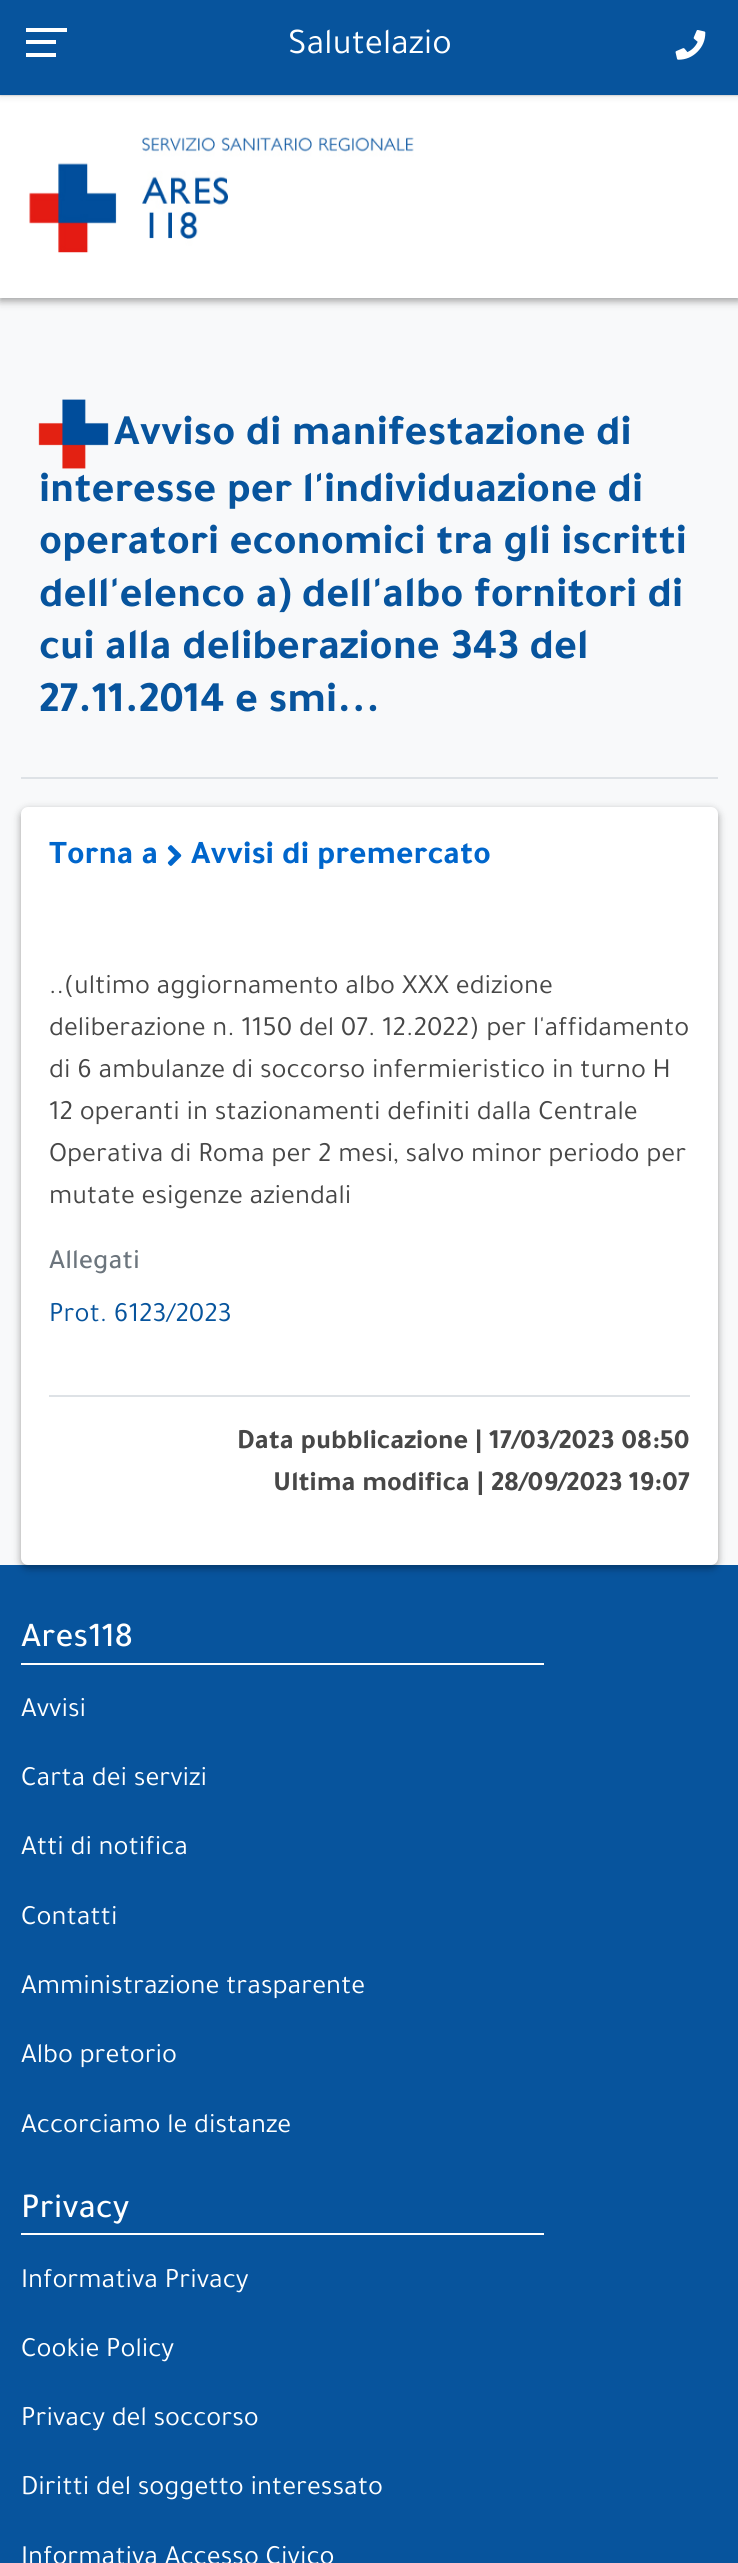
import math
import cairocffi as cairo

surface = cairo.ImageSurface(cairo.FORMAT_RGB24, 738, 2563)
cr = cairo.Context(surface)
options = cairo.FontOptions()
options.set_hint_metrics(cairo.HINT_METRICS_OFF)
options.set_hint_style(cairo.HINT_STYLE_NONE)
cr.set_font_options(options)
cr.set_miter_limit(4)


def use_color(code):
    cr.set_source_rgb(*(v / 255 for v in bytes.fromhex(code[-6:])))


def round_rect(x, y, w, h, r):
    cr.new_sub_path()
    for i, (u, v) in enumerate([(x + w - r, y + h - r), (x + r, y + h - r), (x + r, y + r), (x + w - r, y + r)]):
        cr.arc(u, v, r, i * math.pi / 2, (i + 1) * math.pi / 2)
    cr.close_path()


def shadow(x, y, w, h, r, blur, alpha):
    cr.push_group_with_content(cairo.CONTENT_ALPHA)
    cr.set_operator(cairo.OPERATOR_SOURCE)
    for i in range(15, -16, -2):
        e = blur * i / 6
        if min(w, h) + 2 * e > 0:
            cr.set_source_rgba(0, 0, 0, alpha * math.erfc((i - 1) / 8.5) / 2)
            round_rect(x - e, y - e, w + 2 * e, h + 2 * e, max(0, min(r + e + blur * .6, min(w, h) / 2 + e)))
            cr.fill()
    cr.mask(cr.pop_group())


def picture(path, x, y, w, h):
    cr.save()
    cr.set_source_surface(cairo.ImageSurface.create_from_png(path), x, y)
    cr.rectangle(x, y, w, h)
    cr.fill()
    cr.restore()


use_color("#07549d")
cr.paint()
use_color("#f8f9fa")
cr.rectangle(0, 298, 738, 1267)
cr.fill()
use_color("#000000")
shadow(0, 98, 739, 203, 0, 4.5, 0.19)
shadow(0, 98, 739, 203, 0, 3.5, 0.2)
use_color("#ffffff")
cr.rectangle(0, 95, 738, 203)
cr.fill()
use_color("#000000")
shadow(0, 4, 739, 94, 0, 3.5, 0.07)
shadow(0, 0, 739, 95, 0, 1, 0.3)
use_color("#07549d")
cr.rectangle(0, 0, 738, 95)
cr.fill()
use_color("#ffffff")
cr.rectangle(26, 40, 30, 4)
cr.fill()
cr.rectangle(26, 28, 41, 4)
cr.fill()
cr.rectangle(26, 53, 30, 4)
cr.fill()
cr.select_font_face("Tajawal")
cr.set_font_size(36.5)
cr.move_to(288, 53)
cr.show_text("Salutelazio")
picture("img1.png", 675, 30, 31, 30)
picture("img2.png", 29, 137, 385, 116)
use_color("#dee2e6")
cr.rectangle(21, 777, 697, 2)
cr.fill()
picture("img3.png", 38, 399, 71, 70)
cr.select_font_face("Tajawal", cairo.FONT_SLANT_NORMAL, cairo.FONT_WEIGHT_BOLD)
cr.set_font_size(43.75)
use_color("#07549d")
cr.move_to(114, 444)
cr.show_text("Avviso di manifestazione di")
cr.move_to(39, 501)
cr.show_text("interesse per l'individuazione di")
cr.move_to(39, 553)
cr.show_text("operatori economici tra gli iscritti")
cr.move_to(39, 606)
cr.show_text("dell'elenco a) dell'albo fornitori di")
cr.move_to(39, 658)
cr.show_text("cui alla deliberazione 343 del")
cr.move_to(39, 711)
cr.show_text("27.11.2014 e smi...")
use_color("#000000")
shadow(21, 810, 697, 758, 7, 4.5, 0.19)
shadow(21, 810, 697, 758, 7, 3.5, 0.2)
use_color("#ffffff")
round_rect(21, 807, 697, 758, 7)
cr.fill()
cr.set_font_size(33.25)
use_color("#0066cc")
cr.move_to(49, 863)
cr.show_text("Torna a")
picture("img4.png", 167, 845, 15, 21)
cr.move_to(191, 863)
cr.show_text("Avvisi di premercato")
use_color("#dee2e6")
cr.rectangle(49, 1395, 641, 2)
cr.fill()
cr.select_font_face("Tajawal")
cr.set_font_size(28)
use_color("#474747")
cr.move_to(49, 993)
cr.show_text("..(ultimo aggiornamento albo XXX edizione")
cr.move_to(49, 1035)
cr.show_text("deliberazione n. 1150 del 07. 12.2022) per l'affidamento")
cr.move_to(49, 1077)
cr.show_text("di 6 ambulanze di soccorso infermieristico in turno H")
cr.move_to(49, 1119)
cr.show_text("12 operanti in stazionamenti definiti dalla Centrale")
cr.move_to(49, 1161)
cr.show_text("Operativa di Roma per 2 mesi, salvo minor periodo per")
cr.move_to(49, 1203)
cr.show_text("mutate esigenze aziendali")
cr.select_font_face("Tajawal Medium")
use_color("#6c757d")
cr.move_to(49, 1268)
cr.show_text("Allegati")
cr.select_font_face("Tajawal")
use_color("#07549d")
cr.move_to(49, 1321)
cr.show_text("Prot. 6123/2023")
cr.select_font_face("Tajawal", cairo.FONT_SLANT_NORMAL, cairo.FONT_WEIGHT_BOLD)
use_color("#474747")
cr.move_to(237, 1448)
cr.show_text("Data pubblicazione | 17/03/2023 08:50")
cr.move_to(273, 1490)
cr.show_text("Ultima modifica | 28/09/2023 19:07")
use_color("#ffffff")
cr.rectangle(21, 1663, 523, 2)
cr.fill()
cr.select_font_face("Tajawal Medium")
cr.set_font_size(35)
cr.move_to(21, 1646)
cr.show_text("Ares118")
cr.select_font_face("Tajawal")
cr.set_font_size(28)
cr.move_to(21, 1716)
cr.show_text("Avvisi")
cr.move_to(21, 1785)
cr.show_text("Carta dei servizi")
cr.move_to(21, 1854)
cr.show_text("Atti di notifica")
cr.move_to(21, 1924)
cr.show_text("Contatti")
cr.move_to(21, 1993)
cr.show_text("Amministrazione trasparente")
cr.move_to(21, 2062)
cr.show_text("Albo pretorio")
cr.move_to(21, 2132)
cr.show_text("Accorciamo le distanze")
cr.rectangle(21, 2233, 523, 2)
cr.fill()
cr.select_font_face("Tajawal Medium")
cr.set_font_size(35)
cr.move_to(21, 2217)
cr.show_text("Privacy")
cr.select_font_face("Tajawal")
cr.set_font_size(28)
cr.move_to(21, 2287)
cr.show_text("Informativa Privacy")
cr.move_to(21, 2356)
cr.show_text("Cookie Policy")
cr.move_to(21, 2425)
cr.show_text("Privacy del soccorso")
cr.move_to(21, 2494)
cr.show_text("Diritti del soggetto interessato")
cr.move_to(21, 2564)
cr.show_text("Informativa Accesso Civico")
surface.write_to_png("result.png")
